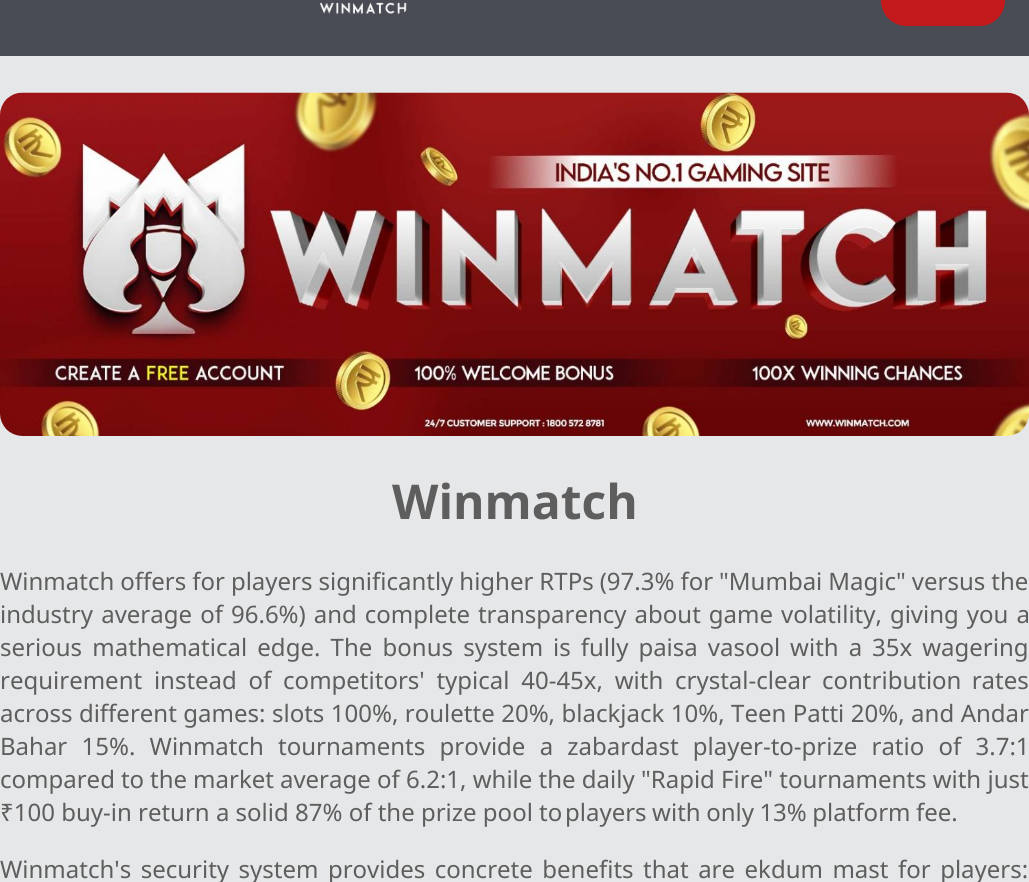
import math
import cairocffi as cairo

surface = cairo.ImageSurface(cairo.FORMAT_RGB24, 1029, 882)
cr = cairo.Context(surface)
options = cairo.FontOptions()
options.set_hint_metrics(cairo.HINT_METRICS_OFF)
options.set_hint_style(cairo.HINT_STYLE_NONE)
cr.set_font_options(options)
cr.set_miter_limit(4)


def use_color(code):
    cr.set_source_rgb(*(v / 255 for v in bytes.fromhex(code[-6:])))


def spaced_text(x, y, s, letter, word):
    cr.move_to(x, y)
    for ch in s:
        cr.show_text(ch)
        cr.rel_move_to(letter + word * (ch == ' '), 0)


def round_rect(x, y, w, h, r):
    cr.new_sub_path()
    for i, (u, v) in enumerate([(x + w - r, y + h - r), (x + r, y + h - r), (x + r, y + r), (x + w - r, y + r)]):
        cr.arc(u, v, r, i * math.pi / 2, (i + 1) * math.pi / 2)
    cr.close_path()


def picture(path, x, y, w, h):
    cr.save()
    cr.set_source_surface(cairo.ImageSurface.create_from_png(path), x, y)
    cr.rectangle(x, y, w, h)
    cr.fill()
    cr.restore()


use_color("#494c55")
cr.paint()
picture("img1.png", 319, 2, 88, 12)
use_color("#c41a1b")
round_rect(881, -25, 124, 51, 25.5)
cr.fill()
use_color("#e6e7e8")
cr.rectangle(0, 56, 1029, 826)
cr.fill()
picture("img2.png", 0, 92, 1029, 344)
cr.select_font_face("Open Sans", cairo.FONT_SLANT_NORMAL, cairo.FONT_WEIGHT_BOLD)
cr.set_font_size(48)
use_color("#5e5e5e")
cr.move_to(392, 519)
cr.show_text("Winmatch")
cr.select_font_face("Noto Sans")
cr.set_font_size(24)
spaced_text(0, 590, "Winmatch offers for players significantly higher RTPs (97.3% for \"Mumbai Magic\" versus the", 0, -0.25)
spaced_text(0, 623, "industry average of", 0, 2)
spaced_text(231, 623, "96.6%) and complete transparency about game volatility, giving you a", 0, 1.75)
spaced_text(0, 656, "serious mathematical edge. The bonus system", 0, 4)
spaced_text(553, 656, "is fully paisa vasool with a 35x wagering", 0, 3.75)
spaced_text(0, 689, "requirement instead of competitors' typical 40-45x, with crystal-clear", 0, 5.5)
spaced_text(822, 689, "contribution rates", 0, 4)
spaced_text(0, 722, "across different games: slots 100%, roulette 20%, blackjack 10%, Teen Patti 20%, and Andar", 0, 0.25)
spaced_text(0, 755, "Bahar 15%. Winmatch tournaments provide a zabardast player-to-prize ratio of 3.7:1", 0, 8)
spaced_text(0, 788, "compared to the market average", 0, -0.25)
cr.move_to(377, 788)
cr.show_text("of 6.2:1, while the daily \"Rapid Fire\" tournaments with just")
cr.move_to(0, 821)
cr.show_text("₹100 buy-in return a solid 87% of the prize pool to")
spaced_text(565, 821, "players with only 13% platform fee.", 0, -0.75)
spaced_text(0, 878, "Winmatch's security system provides concrete benefits that are ekdum mast for players:", 0, 3.25)
surface.write_to_png("result.png")
